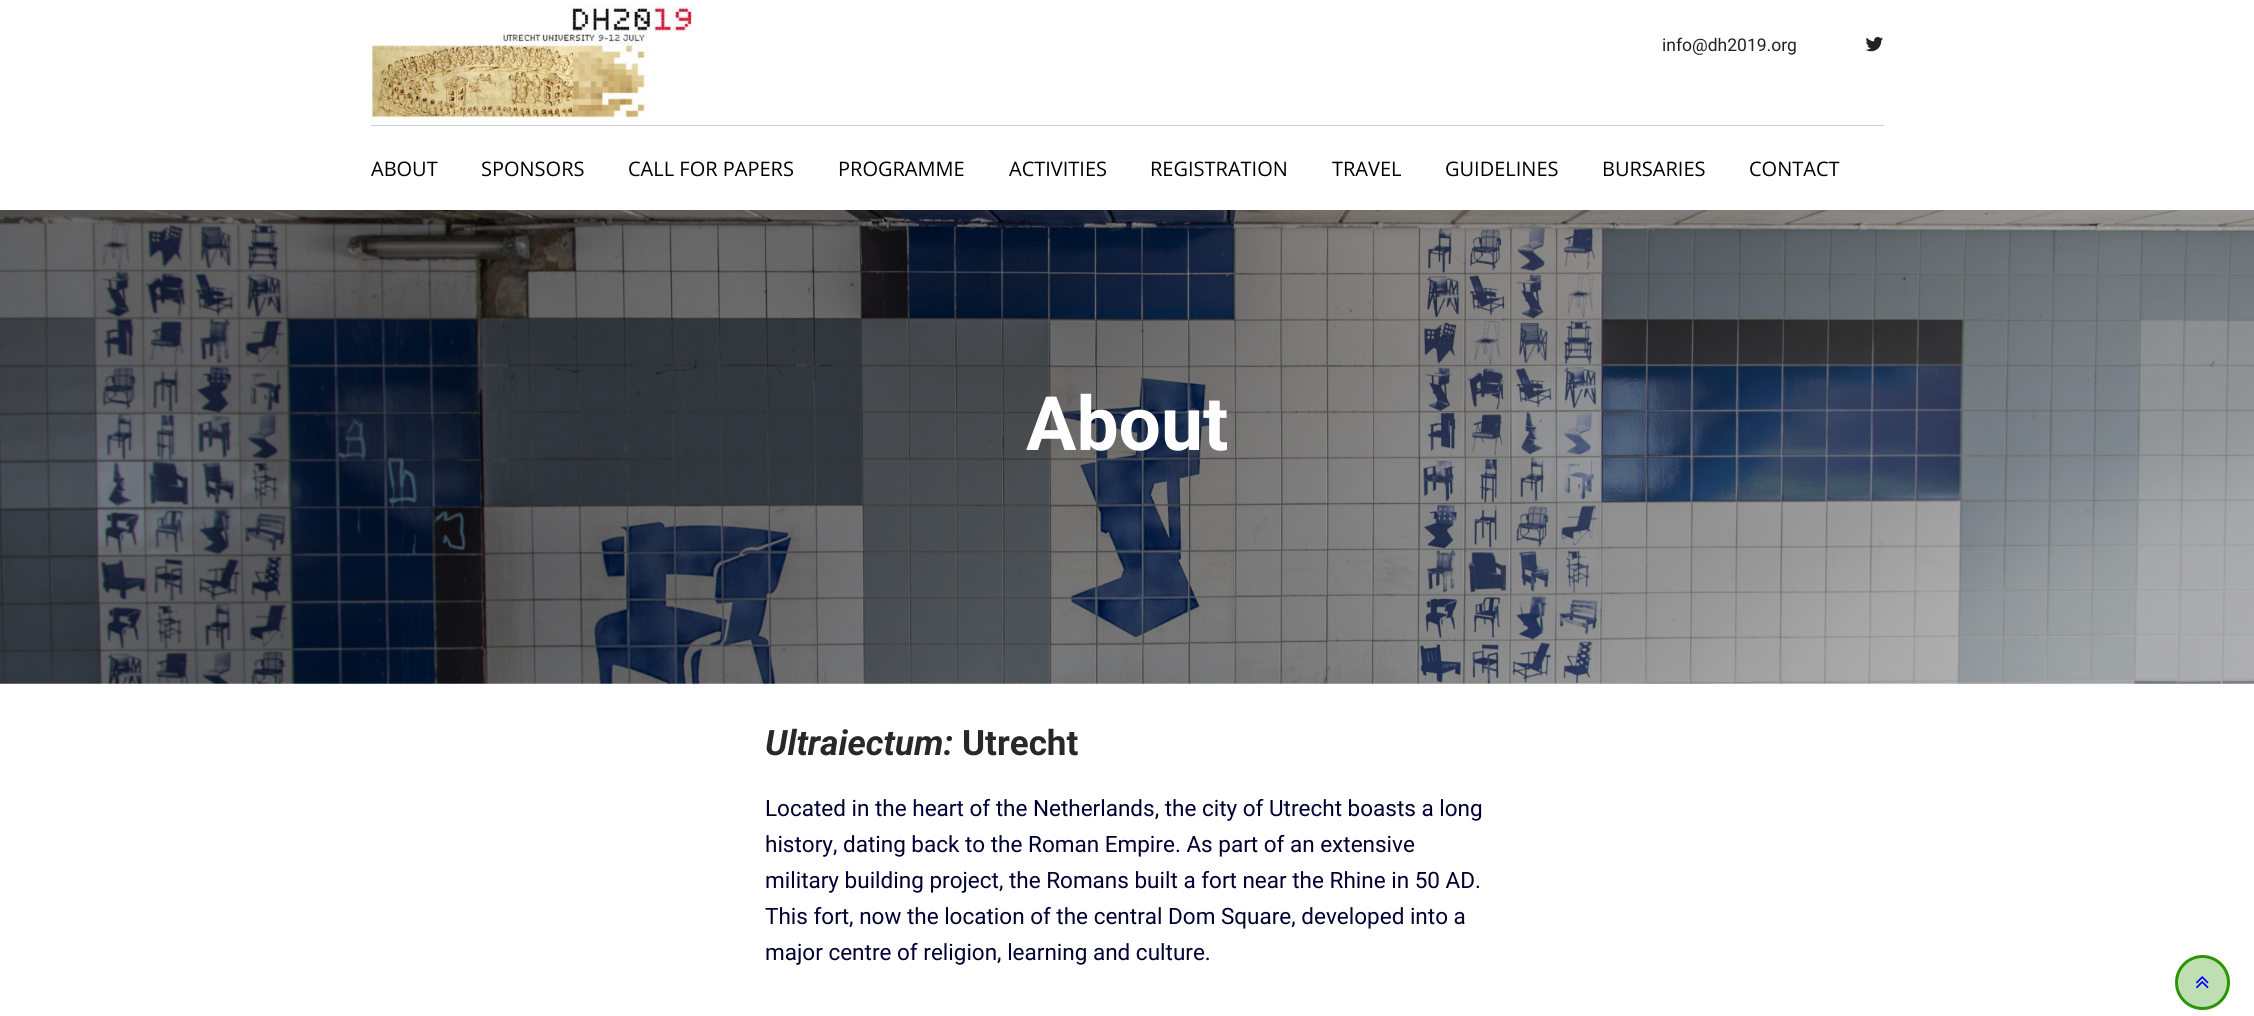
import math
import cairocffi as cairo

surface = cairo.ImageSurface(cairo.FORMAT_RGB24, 2254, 1016)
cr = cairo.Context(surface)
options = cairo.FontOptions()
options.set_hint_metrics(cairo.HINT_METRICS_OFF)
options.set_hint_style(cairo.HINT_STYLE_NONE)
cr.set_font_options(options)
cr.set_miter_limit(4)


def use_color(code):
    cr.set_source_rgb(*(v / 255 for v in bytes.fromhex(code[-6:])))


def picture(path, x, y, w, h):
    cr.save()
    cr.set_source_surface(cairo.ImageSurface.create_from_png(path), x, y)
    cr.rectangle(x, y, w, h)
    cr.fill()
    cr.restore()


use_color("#ffffff")
cr.paint()
picture("img1.png", 371, 6, 322, 113)
cr.select_font_face("Roboto")
cr.set_font_size(17.5)
use_color("#222222")
cr.move_to(1662, 51)
cr.show_text("info@dh2019.org")
picture("img2.png", 1865, 37, 18, 15)
use_color("#d0d0d0")
cr.rectangle(371, 125, 1513, 1)
cr.fill()
cr.select_font_face("Open Sans")
cr.set_font_size(20)
use_color("#000000")
cr.move_to(371, 176)
cr.show_text("ABOUT")
cr.move_to(481, 176)
cr.show_text("SPONSORS")
cr.move_to(628, 176)
cr.show_text("CALL FOR PAPERS")
cr.move_to(838, 176)
cr.show_text("PROGRAMME")
cr.move_to(1009, 176)
cr.show_text("ACTIVITIES")
cr.move_to(1150, 176)
cr.show_text("REGISTRATION")
cr.move_to(1332, 176)
cr.show_text("TRAVEL")
cr.move_to(1445, 176)
cr.show_text("GUIDELINES")
cr.move_to(1602, 176)
cr.show_text("BURSARIES")
cr.move_to(1749, 176)
cr.show_text("CONTACT")
picture("img3.png", 0, 210, 2254, 474)
cr.select_font_face("Roboto", cairo.FONT_SLANT_NORMAL, cairo.FONT_WEIGHT_BOLD)
cr.set_font_size(75)
use_color("#ffffff")
cr.move_to(1026, 450)
cr.show_text("About")
cr.select_font_face("Roboto", cairo.FONT_SLANT_ITALIC, cairo.FONT_WEIGHT_BOLD)
cr.set_font_size(35)
use_color("#282828")
cr.move_to(765, 755)
cr.show_text("Ultraiectum:")
cr.select_font_face("Roboto", cairo.FONT_SLANT_NORMAL, cairo.FONT_WEIGHT_BOLD)
cr.move_to(962, 755)
cr.show_text("Utrecht")
cr.select_font_face("Roboto")
cr.set_font_size(22.5)
use_color("#000033")
cr.move_to(765, 816)
cr.show_text("Located in the heart of the Netherlands, the city of Utrecht boasts a long")
cr.move_to(765, 852)
cr.show_text("history, dating back to the Roman Empire. As part of an extensive")
cr.move_to(765, 888)
cr.show_text("military building project, the Romans built a fort near the Rhine in 50 AD.")
cr.move_to(765, 924)
cr.show_text("This fort, now the location of the central Dom Square, developed into a")
cr.move_to(765, 960)
cr.show_text("major centre of religion, learning and culture.")
use_color("#bfdfb3")
cr.new_path()
cr.arc(2202.5, 982.5, 26, 0, 2 * math.pi)
cr.fill_preserve()
use_color("#2a9500")
cr.set_line_width(3)
cr.stroke()
picture("img4.png", 2196, 976, 13, 13)
surface.write_to_png("result.png")
